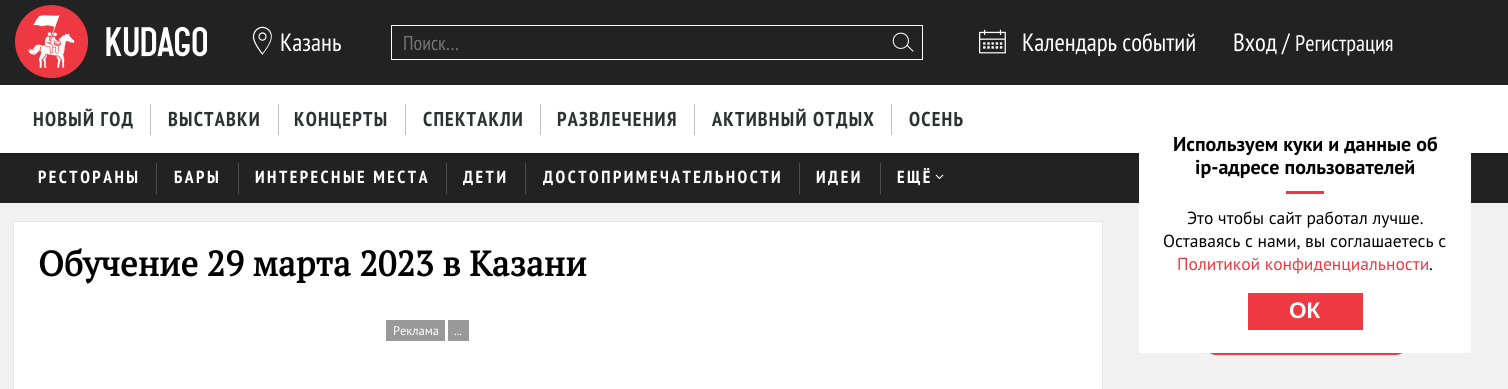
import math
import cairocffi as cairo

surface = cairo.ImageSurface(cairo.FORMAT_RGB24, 1508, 389)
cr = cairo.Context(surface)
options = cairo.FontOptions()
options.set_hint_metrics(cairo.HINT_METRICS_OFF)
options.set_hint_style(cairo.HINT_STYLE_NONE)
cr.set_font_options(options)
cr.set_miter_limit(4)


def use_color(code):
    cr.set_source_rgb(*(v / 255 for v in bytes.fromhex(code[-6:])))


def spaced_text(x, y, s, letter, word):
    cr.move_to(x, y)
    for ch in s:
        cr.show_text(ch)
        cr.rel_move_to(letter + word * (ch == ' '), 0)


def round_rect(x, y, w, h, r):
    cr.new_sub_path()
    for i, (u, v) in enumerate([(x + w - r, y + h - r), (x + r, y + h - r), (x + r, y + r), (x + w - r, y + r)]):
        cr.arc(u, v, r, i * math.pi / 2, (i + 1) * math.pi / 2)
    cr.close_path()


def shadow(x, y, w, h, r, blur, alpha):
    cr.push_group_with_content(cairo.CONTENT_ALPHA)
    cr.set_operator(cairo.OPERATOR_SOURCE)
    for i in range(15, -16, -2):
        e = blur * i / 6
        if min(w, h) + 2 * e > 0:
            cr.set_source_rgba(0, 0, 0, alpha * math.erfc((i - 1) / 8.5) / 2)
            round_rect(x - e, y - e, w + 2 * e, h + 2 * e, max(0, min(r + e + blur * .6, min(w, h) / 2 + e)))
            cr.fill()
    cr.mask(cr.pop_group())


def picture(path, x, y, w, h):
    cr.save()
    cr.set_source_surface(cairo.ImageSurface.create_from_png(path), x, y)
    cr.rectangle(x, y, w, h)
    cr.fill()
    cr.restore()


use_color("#f1f1f1")
cr.paint()
use_color("#222222")
cr.rectangle(0, 0, 1508, 85)
cr.fill()
picture("img1.png", 15, 5, 192, 73)
picture("img2.png", 252, 26, 20, 29)
cr.select_font_face("PT Sans Narrow")
cr.set_font_size(25)
use_color("#ffffff")
cr.move_to(280, 51)
cr.show_text("Казань")
cr.rectangle(391.5, 25.5, 531, 34)
cr.set_line_width(1)
cr.stroke()
cr.set_font_size(20)
use_color("#757575")
cr.move_to(403, 50)
cr.show_text("Поиск…")
picture("img3.png", 892, 32, 22, 20)
picture("img4.png", 979, 29, 27, 25)
cr.set_font_size(25)
use_color("#ffffff")
cr.move_to(1022, 51)
cr.show_text("Календарь событий")
cr.move_to(1233, 51)
cr.show_text("Вход")
cr.move_to(1282, 51)
cr.show_text("/")
cr.set_font_size(22.5)
cr.move_to(1295, 51)
cr.show_text("Регистрация")
use_color("#222222")
cr.rectangle(0, 153, 1508, 50)
cr.fill()
use_color("#000000")
shadow(0, 89, 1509, 67, 0, 2, 0.1)
use_color("#ffffff")
cr.rectangle(0, 85, 1508, 68)
cr.fill()
cr.select_font_face("PT Sans Narrow", cairo.FONT_SLANT_NORMAL, cairo.FONT_WEIGHT_BOLD)
cr.set_font_size(20)
use_color("#2f3235")
spaced_text(33, 126, "НОВЫЙ ГОД", 1.25, 0)
use_color("#bdc2c1")
cr.rectangle(150, 104, 1, 31)
cr.fill()
use_color("#2f3235")
spaced_text(168, 126, "ВЫСТАВКИ", 1.25, 0)
use_color("#bdc2c1")
cr.rectangle(278, 104, 1, 31)
cr.fill()
use_color("#2f3235")
spaced_text(294, 126, "КОНЦЕРТЫ", 1.25, 0)
use_color("#bdc2c1")
cr.rectangle(405, 104, 1, 31)
cr.fill()
use_color("#2f3235")
spaced_text(423, 126, "СПЕКТАКЛИ", 1.25, 0)
use_color("#bdc2c1")
cr.rectangle(540, 104, 1, 31)
cr.fill()
use_color("#2f3235")
spaced_text(557, 126, "РАЗВЛЕЧЕНИЯ", 1.25, 0)
use_color("#bdc2c1")
cr.rectangle(694, 104, 1, 31)
cr.fill()
use_color("#2f3235")
spaced_text(712, 126, "АКТИВНЫЙ ОТДЫХ", 1.25, 0)
use_color("#bdc2c1")
cr.rectangle(891, 104, 1, 31)
cr.fill()
use_color("#2f3235")
spaced_text(909, 126, "ОСЕНЬ", 1.25, 0)
cr.set_font_size(17.5)
use_color("#ffffff")
spaced_text(38, 183, "РЕСТОРАНЫ", 2.5, 0)
use_color("#4c4f50")
cr.rectangle(156, 163, 1, 31)
cr.fill()
use_color("#ffffff")
spaced_text(174, 183, "БАРЫ", 2.5, 0)
use_color("#4c4f50")
cr.rectangle(238, 163, 1, 31)
cr.fill()
use_color("#ffffff")
spaced_text(255, 183, "ИНТЕРЕСНЫЕ МЕСТА", 2.5, 0)
use_color("#4c4f50")
cr.rectangle(446, 163, 1, 31)
cr.fill()
use_color("#ffffff")
spaced_text(463, 183, "ДЕТИ", 2.5, 0)
use_color("#4c4f50")
cr.rectangle(525, 163, 1, 31)
cr.fill()
use_color("#ffffff")
spaced_text(543, 183, "ДОСТОПРИМЕЧАТЕЛЬНОСТИ", 2.5, 0)
use_color("#4c4f50")
cr.rectangle(799, 163, 1, 31)
cr.fill()
use_color("#ffffff")
spaced_text(816, 183, "ИДЕИ", 2.5, 0)
use_color("#4c4f50")
cr.rectangle(880, 163, 1, 31)
cr.fill()
use_color("#ffffff")
spaced_text(897, 183, "ЕЩЁ", 2.5, 0)
picture("img5.png", 935, 174, 9, 6)
cr.rectangle(13.5, 221.5, 1089, 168)
cr.fill_preserve()
use_color("#e6e8ea")
cr.stroke()
cr.select_font_face("PT Serif", cairo.FONT_SLANT_NORMAL, cairo.FONT_WEIGHT_BOLD)
cr.set_font_size(35)
use_color("#000000")
cr.move_to(38, 276)
cr.show_text("Обучение 29 марта 2023 в Казани")
use_color("#999999")
cr.rectangle(386, 320, 59, 21)
cr.fill()
cr.select_font_face("PT Sans")
cr.set_font_size(12.5)
use_color("#ffffff")
cr.move_to(393, 335)
cr.show_text("Реклама")
use_color("#999999")
cr.rectangle(448, 320, 21, 21)
cr.fill()
use_color("#ffffff")
cr.move_to(454, 335)
cr.show_text("...")
use_color("#ee3942")
round_rect(1206, 313, 200, 42, 10)
cr.fill()
use_color("#ffffff")
cr.rectangle(1139, 153, 332, 200)
cr.fill()
cr.select_font_face("PT Sans", cairo.FONT_SLANT_NORMAL, cairo.FONT_WEIGHT_BOLD)
cr.set_font_size(20)
use_color("#000000")
cr.move_to(1173, 151)
cr.show_text("Используем куки и данные об")
cr.move_to(1195, 174)
cr.show_text("ip-адресе пользователей")
use_color("#ee3942")
cr.rectangle(1286, 191, 38, 3)
cr.fill()
cr.select_font_face("PT Sans")
cr.set_font_size(17.5)
use_color("#000000")
cr.move_to(1187, 224)
cr.show_text("Это чтобы сайт работал лучше.")
cr.move_to(1163, 247)
cr.show_text("Оставаясь с нами, вы соглашаетесь с")
use_color("#ee3942")
cr.move_to(1177, 270)
cr.show_text("Политикой конфиденциальности")
use_color("#000000")
cr.move_to(1429, 270)
cr.show_text(".")
use_color("#ee3942")
cr.rectangle(1248, 293, 115, 37)
cr.fill()
cr.select_font_face("Liberation Sans", cairo.FONT_SLANT_NORMAL, cairo.FONT_WEIGHT_BOLD)
cr.set_font_size(22.5)
use_color("#ffffff")
cr.move_to(1289, 318)
cr.show_text("ОК")
surface.write_to_png("result.png")
